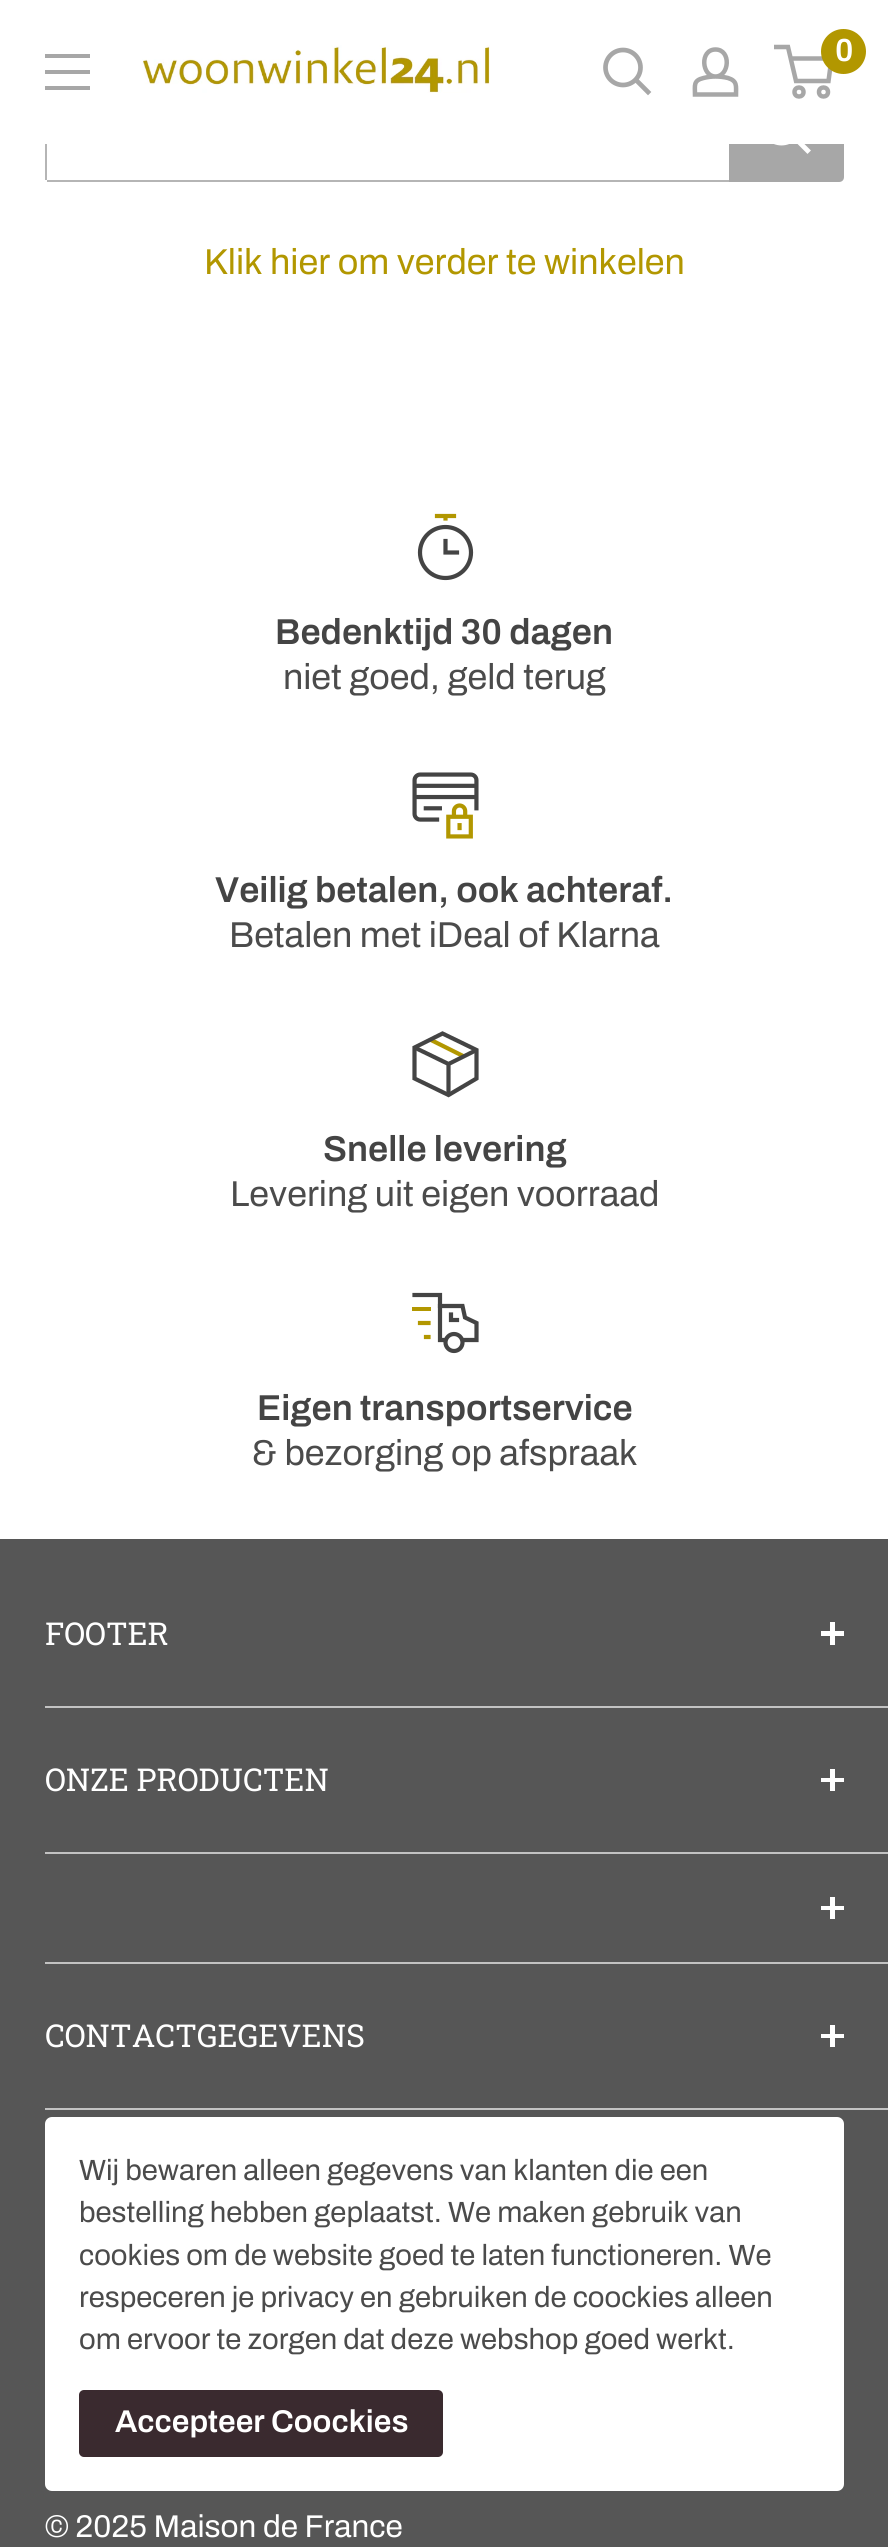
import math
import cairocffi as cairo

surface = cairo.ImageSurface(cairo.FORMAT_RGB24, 888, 2547)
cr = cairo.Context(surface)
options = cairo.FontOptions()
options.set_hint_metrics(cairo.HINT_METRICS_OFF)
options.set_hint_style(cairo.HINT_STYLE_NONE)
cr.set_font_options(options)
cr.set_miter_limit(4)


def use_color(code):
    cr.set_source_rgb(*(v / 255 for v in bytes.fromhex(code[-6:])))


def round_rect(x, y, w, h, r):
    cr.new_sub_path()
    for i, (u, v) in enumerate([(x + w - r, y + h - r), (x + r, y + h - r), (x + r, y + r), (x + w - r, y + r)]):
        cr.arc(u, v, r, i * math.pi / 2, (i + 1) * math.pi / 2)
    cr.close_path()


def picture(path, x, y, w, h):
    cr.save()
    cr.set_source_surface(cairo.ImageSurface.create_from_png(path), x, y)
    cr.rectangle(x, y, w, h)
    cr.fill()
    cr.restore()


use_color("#ffffff")
cr.paint()
use_color("#a7a7a7")
cr.new_path()
cr.move_to(729, 74)
cr.line_to(839, 74)
cr.curve_to(842, 74, 844, 76, 844, 79)
cr.line_to(844, 177)
cr.curve_to(844, 180, 842, 182, 839, 182)
cr.line_to(729, 182)
cr.close_path()
cr.fill()
cr.new_path()
cr.move_to(807.5, 150.5)
cr.line_to(795, 138)
use_color("#ffffff")
cr.set_line_width(4.9)
cr.set_line_cap(cairo.LINE_CAP_SQUARE)
cr.stroke()
cr.arc(781.5, 124.5, 18.5, 0, 2 * math.pi)
cr.set_line_cap(cairo.LINE_CAP_BUTT)
cr.stroke()
cr.rectangle(729, 74, 115, 70)
cr.fill()
use_color("#a7a7a7")
cr.set_fill_rule(cairo.FILL_RULE_EVEN_ODD)
cr.new_path()
cr.move_to(45, 86)
cr.line_to(90, 86)
cr.line_to(90, 90)
cr.line_to(45, 90)
cr.close_path()
cr.move_to(45, 54)
cr.line_to(90, 54)
cr.line_to(90, 58)
cr.line_to(45, 58)
cr.close_path()
cr.move_to(45, 70)
cr.line_to(90, 70)
cr.line_to(90, 74)
cr.line_to(45, 74)
cr.close_path()
cr.fill()
picture("img1.png", 142, 45, 348, 48)
cr.new_path()
cr.move_to(648, 92)
cr.line_to(636, 80)
cr.set_line_width(4.7)
cr.set_line_cap(cairo.LINE_CAP_SQUARE)
cr.stroke()
cr.arc(623, 67.5, 17.5, 0, 2 * math.pi)
cr.set_line_cap(cairo.LINE_CAP_BUTT)
cr.stroke()
cr.new_path()
cr.move_to(715.5, 76.5)
cr.curve_to(719.5, 76.5, 724, 77, 728, 78)
cr.curve_to(737.5, 81, 736, 86, 736, 94.5)
cr.line_to(695, 94.5)
cr.curve_to(695, 85.5, 693, 80.5, 703.5, 78)
cr.curve_to(707.5, 77, 711.5, 76.5, 715.5, 76.5)
cr.close_path()
cr.move_to(715.5, 76.5)
cr.curve_to(701.5, 76.5, 699.5, 49.5, 715.5, 49.5)
cr.curve_to(731.5, 49.5, 729.5, 76.5, 715.5, 76.5)
cr.close_path()
cr.set_line_width(4.5)
cr.stroke()
cr.arc(799, 92, 4.5, 0, 2 * math.pi)
cr.stroke()
cr.arc(823.5, 92, 4.5, 0, 2 * math.pi)
cr.stroke()
cr.new_path()
cr.move_to(790.5, 58.5)
cr.line_to(831.5, 58.5)
cr.line_to(828.5, 81)
cr.line_to(796, 81)
cr.line_to(788, 47)
cr.line_to(774, 47)
cr.stroke()
use_color("#b29700")
cr.arc(843.5, 51.5, 22.5, 0, 2 * math.pi)
cr.fill()
cr.select_font_face("Archivo SemiBold")
cr.set_font_size(32)
use_color("#ffffff")
cr.move_to(835, 61)
cr.show_text("0")
use_color("#b5b5b5")
cr.rectangle(47, 180, 682, 2)
cr.fill()
cr.rectangle(45, 144, 2, 36)
cr.fill()
cr.select_font_face("Archivo")
cr.set_font_size(36)
use_color("#b29700")
cr.move_to(204, 274)
cr.show_text("Klik hier om verder te winkelen")
cr.new_path()
cr.move_to(437, 516)
cr.line_to(454, 516)
cr.move_to(445.5, 516)
cr.line_to(445.5, 518.5)
cr.set_line_width(4.2)
cr.set_line_cap(cairo.LINE_CAP_SQUARE)
cr.stroke()
cr.new_path()
cr.move_to(445.5, 541)
cr.line_to(445.5, 552.5)
cr.line_to(457, 552.5)
use_color("#444444")
cr.stroke()
cr.arc(445.5, 552.5, 25.5, 0, 2 * math.pi)
cr.set_line_cap(cairo.LINE_CAP_BUTT)
cr.stroke()
cr.select_font_face("Archivo SemiBold")
cr.move_to(275, 644)
cr.show_text("Bedenktijd 30 dagen")
cr.select_font_face("Archivo")
use_color("#4b4b4b")
cr.move_to(283, 689)
cr.show_text("niet goed, geld terug")
picture("img2.png", 412, 772, 67, 67)
cr.select_font_face("Archivo SemiBold")
use_color("#444444")
cr.move_to(215, 902)
cr.show_text("Veilig betalen, ook achteraf.")
cr.select_font_face("Archivo")
use_color("#4b4b4b")
cr.move_to(229, 947)
cr.show_text("Betalen met iDeal of Klarna")
cr.new_path()
cr.move_to(430, 1039.5)
cr.line_to(464, 1056.5)
use_color("#b29700")
cr.stroke()
cr.new_path()
cr.move_to(476.5, 1050)
cr.line_to(448.5, 1064)
cr.line_to(414.5, 1047.5)
cr.move_to(448.5, 1064)
cr.line_to(448.5, 1095)
use_color("#444444")
cr.stroke()
cr.new_path()
cr.move_to(476.5, 1050)
cr.line_to(476.5, 1078.5)
cr.line_to(448.5, 1095)
cr.line_to(414.5, 1078.5)
cr.line_to(414.5, 1047.5)
cr.line_to(442.5, 1033.5)
cr.close_path()
cr.set_line_cap(cairo.LINE_CAP_SQUARE)
cr.stroke()
cr.select_font_face("Archivo SemiBold")
cr.move_to(323, 1161)
cr.show_text("Snelle levering")
cr.select_font_face("Archivo")
use_color("#4b4b4b")
cr.move_to(230, 1206)
cr.show_text("Levering uit eigen voorraad")
use_color("#b29700")
cr.rectangle(412, 1307, 19, 4)
cr.fill()
cr.new_path()
cr.move_to(462, 1340)
cr.line_to(476.5, 1340)
cr.line_to(476.5, 1323)
cr.line_to(465, 1317.5)
cr.line_to(462.5, 1306)
cr.line_to(440, 1306)
cr.line_to(440, 1340)
cr.line_to(446, 1340)
use_color("#444444")
cr.set_line_cap(cairo.LINE_CAP_BUTT)
cr.stroke()
cr.new_path()
cr.move_to(414.5, 1295)
cr.line_to(440, 1295)
cr.line_to(440, 1306)
cr.set_line_cap(cairo.LINE_CAP_SQUARE)
cr.stroke()
cr.new_path()
cr.move_to(451, 1314.5)
cr.line_to(451, 1320)
cr.line_to(457, 1320)
cr.stroke()
cr.new_path()
cr.move_to(428.5, 1323)
cr.line_to(420, 1323)
cr.move_to(428.5, 1337)
cr.line_to(426, 1337)
use_color("#b29700")
cr.stroke()
cr.arc(454, 1342.5, 8.5, 0, 2 * math.pi)
use_color("#444444")
cr.set_line_cap(cairo.LINE_CAP_BUTT)
cr.stroke()
cr.select_font_face("Archivo SemiBold")
cr.move_to(257, 1420)
cr.show_text("Eigen transportservice")
cr.select_font_face("Archivo")
use_color("#4b4b4b")
cr.move_to(252, 1465)
cr.show_text("& bezorging op afspraak")
use_color("#565656")
cr.rectangle(0, 1539, 888, 1008)
cr.fill()
use_color("#c2c2c2")
cr.rectangle(45, 1706, 843, 2)
cr.fill()
cr.select_font_face("Roboto Slab")
cr.set_font_size(31.5)
use_color("#ffffff")
cr.move_to(45, 1645)
cr.show_text("FOOTER")
cr.rectangle(830, 1622, 5, 23)
cr.fill()
cr.rectangle(821, 1631, 23, 5)
cr.fill()
use_color("#c2c2c2")
cr.rectangle(45, 1852, 843, 2)
cr.fill()
use_color("#ffffff")
cr.move_to(45, 1791)
cr.show_text("ONZE PRODUCTEN")
cr.rectangle(830, 1769, 5, 22)
cr.fill()
cr.rectangle(821, 1778, 23, 4)
cr.fill()
use_color("#c2c2c2")
cr.rectangle(45, 1962, 843, 2)
cr.fill()
use_color("#ffffff")
cr.rectangle(830, 1897, 5, 22)
cr.fill()
cr.rectangle(821, 1906, 23, 4)
cr.fill()
use_color("#c2c2c2")
cr.rectangle(45, 2108, 843, 2)
cr.fill()
use_color("#ffffff")
cr.move_to(45, 2047)
cr.show_text("CONTACTGEGEVENS")
cr.rectangle(830, 2025, 5, 22)
cr.fill()
cr.rectangle(821, 2034, 23, 4)
cr.fill()
cr.select_font_face("Archivo")
cr.move_to(45, 2537)
cr.show_text("© 2025 Maison de France")
round_rect(45, 2117, 799, 374, 7)
cr.fill()
cr.set_font_size(29.25)
use_color("#4b4b4b")
cr.move_to(79, 2180)
cr.show_text("Wij bewaren alleen gegevens van klanten die een")
cr.move_to(79, 2222)
cr.show_text("bestelling hebben geplaatst. We maken gebruik van")
cr.move_to(79, 2265)
cr.show_text("cookies om de website goed te laten functioneren. We")
cr.move_to(79, 2307)
cr.show_text("respeceren je privacy en gebruiken de coockies alleen")
cr.move_to(79, 2349)
cr.show_text("om ervoor te zorgen dat deze webshop goed werkt.")
use_color("#3a2a2f")
round_rect(79, 2390, 364, 67, 5)
cr.fill()
cr.select_font_face("Archivo SemiBold")
cr.set_font_size(31.5)
use_color("#ffffff")
cr.move_to(115, 2432)
cr.show_text("Accepteer Coockies")
surface.write_to_png("result.png")
